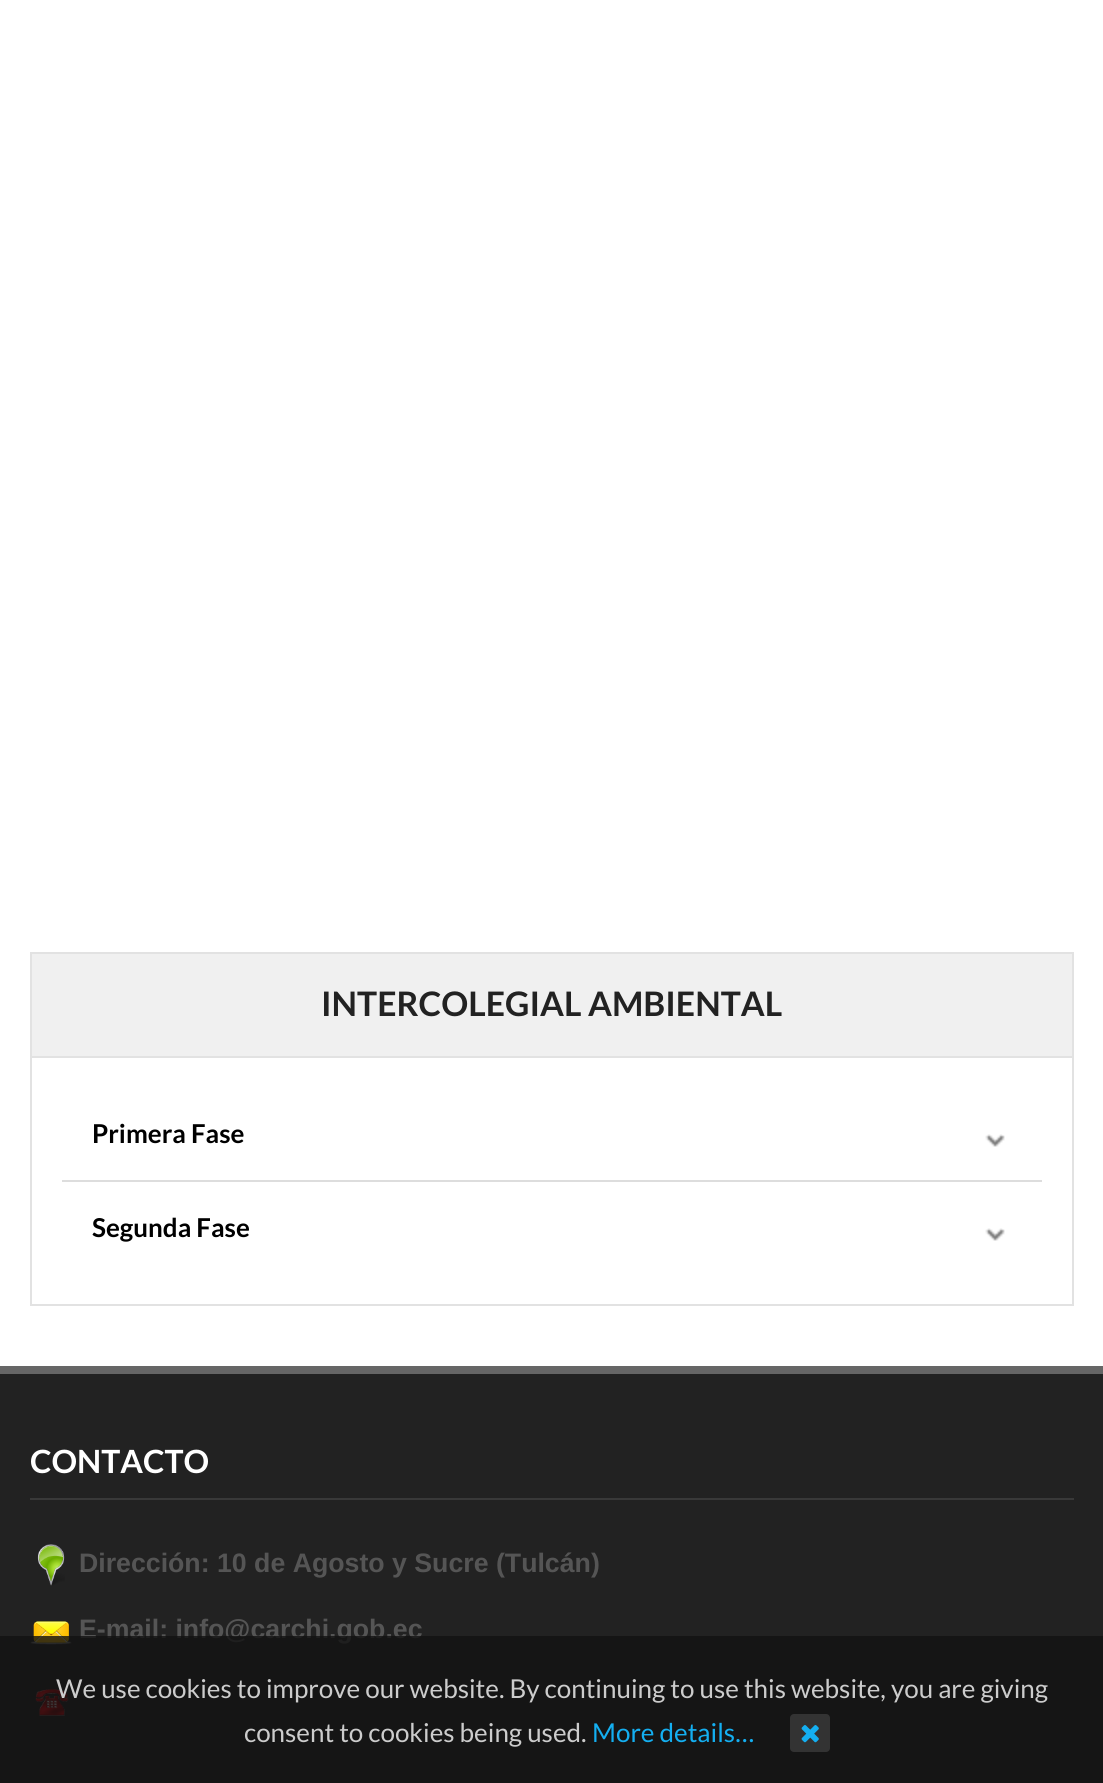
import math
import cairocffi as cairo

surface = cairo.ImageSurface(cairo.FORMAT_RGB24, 1103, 1783)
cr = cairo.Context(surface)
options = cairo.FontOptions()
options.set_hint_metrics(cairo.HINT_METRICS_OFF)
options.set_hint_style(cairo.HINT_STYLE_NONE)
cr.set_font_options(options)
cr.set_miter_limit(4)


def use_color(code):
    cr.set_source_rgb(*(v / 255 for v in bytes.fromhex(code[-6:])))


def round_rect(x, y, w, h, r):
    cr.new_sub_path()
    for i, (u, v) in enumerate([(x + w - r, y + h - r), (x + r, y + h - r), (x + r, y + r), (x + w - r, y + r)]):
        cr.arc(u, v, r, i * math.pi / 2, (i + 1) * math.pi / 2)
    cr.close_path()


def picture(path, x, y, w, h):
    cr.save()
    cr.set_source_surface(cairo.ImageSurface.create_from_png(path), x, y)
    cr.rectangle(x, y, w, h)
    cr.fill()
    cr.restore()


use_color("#ffffff")
cr.paint()
cr.rectangle(31, 953, 1042, 352)
use_color("#e2e2e2")
cr.stroke()
use_color("#f0f0f0")
cr.rectangle(32, 954, 1040, 102)
cr.fill()
use_color("#e2e2e2")
cr.rectangle(32, 1056, 1040, 2)
cr.fill()
cr.select_font_face("Lato", cairo.FONT_SLANT_NORMAL, cairo.FONT_WEIGHT_BOLD)
cr.set_font_size(33.75)
use_color("#222222")
cr.move_to(321, 1016)
cr.show_text("INTERCOLEGIAL AMBIENTAL")
use_color("#dddddd")
cr.rectangle(62, 1180, 980, 2)
cr.fill()
cr.set_font_size(26)
use_color("#000000")
cr.move_to(92, 1143)
cr.show_text("Primera Fase")
picture("img1.png", 985, 1134, 20, 13)
cr.move_to(92, 1237)
cr.show_text("Segunda Fase")
picture("img1.png", 985, 1228, 20, 13)
use_color("#222222")
cr.rectangle(0, 1374, 1103, 409)
cr.fill()
use_color("#666666")
cr.rectangle(0, 1366, 1103, 8)
cr.fill()
use_color("#393939")
cr.rectangle(30, 1498, 1044, 2)
cr.fill()
cr.set_font_size(32)
use_color("#ffffff")
cr.move_to(30, 1473)
cr.show_text("CONTACTO")
picture("img2.png", 37, 1544, 28, 42)
cr.select_font_face("Liberation Sans", cairo.FONT_SLANT_NORMAL, cairo.FONT_WEIGHT_BOLD)
cr.set_font_size(26.7)
use_color("#555555")
cr.move_to(79, 1572)
cr.show_text("Dirección: 10 de Agosto y Sucre (Tulcán)")
picture("img3.png", 30, 1621, 42, 24)
cr.move_to(79, 1638)
cr.show_text("E-mail: info@carchi.gob.ec")
picture("img4.png", 35, 1689, 34, 27)
cr.set_source_rgba(0.071, 0.071, 0.071, 0.8)
cr.rectangle(0, 1636, 1103, 147)
cr.fill()
cr.select_font_face("Lato")
cr.set_font_size(26)
use_color("#cccccc")
cr.move_to(56, 1698)
cr.show_text("We use cookies to improve our website. By continuing to use this website, you are giving")
cr.move_to(244, 1742)
cr.show_text("consent to cookies being used.")
use_color("#14aff1")
cr.move_to(592, 1742)
cr.show_text("More details…")
use_color("#333333")
round_rect(790, 1714, 40, 38, 4)
cr.fill()
picture("img5.png", 801, 1725, 18, 18)
surface.write_to_png("result.png")
